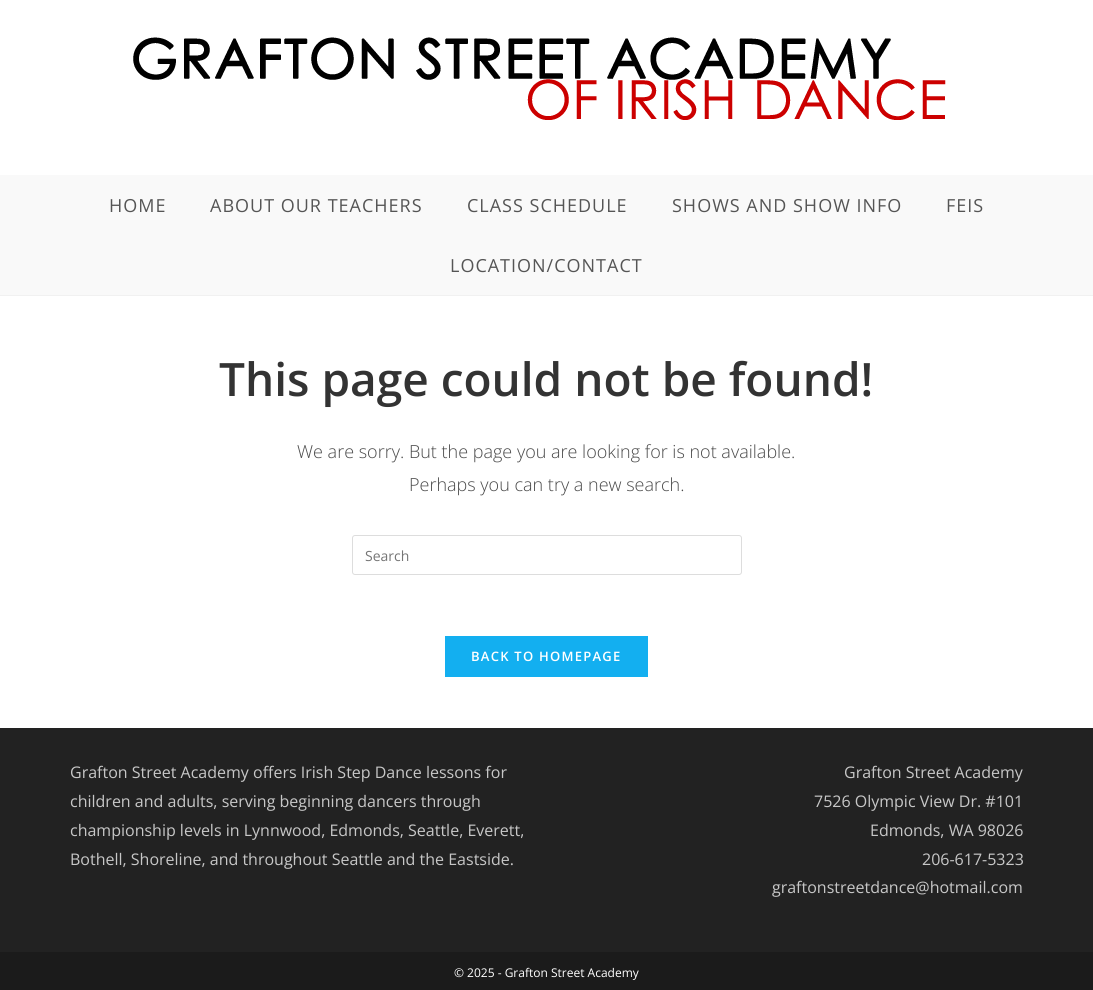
import math
import cairocffi as cairo

surface = cairo.ImageSurface(cairo.FORMAT_RGB24, 1093, 990)
cr = cairo.Context(surface)
options = cairo.FontOptions()
options.set_hint_metrics(cairo.HINT_METRICS_OFF)
options.set_hint_style(cairo.HINT_STYLE_NONE)
cr.set_font_options(options)
cr.set_miter_limit(4)


def use_color(code):
    cr.set_source_rgb(*(v / 255 for v in bytes.fromhex(code[-6:])))


def spaced_text(x, y, s, letter, word):
    cr.move_to(x, y)
    for ch in s:
        cr.show_text(ch)
        cr.rel_move_to(letter + word * (ch == ' '), 0)


def round_rect(x, y, w, h, r):
    cr.new_sub_path()
    for i, (u, v) in enumerate([(x + w - r, y + h - r), (x + r, y + h - r), (x + r, y + r), (x + w - r, y + r)]):
        cr.arc(u, v, r, i * math.pi / 2, (i + 1) * math.pi / 2)
    cr.close_path()


def picture(path, x, y, w, h):
    cr.save()
    cr.set_source_surface(cairo.ImageSurface.create_from_png(path), x, y)
    cr.rectangle(x, y, w, h)
    cr.fill()
    cr.restore()


use_color("#ffffff")
cr.paint()
use_color("#f1f1f1")
cr.rectangle(0, 295, 1093, 1)
cr.fill()
picture("img1.png", 133, 37, 813, 83)
use_color("#f9f9f9")
cr.rectangle(0, 175, 1093, 120)
cr.fill()
cr.select_font_face("Open Sans")
cr.set_font_size(18)
use_color("#555555")
spaced_text(109, 212, "HOME", 1, 0)
spaced_text(210, 212, "ABOUT OUR TEACHERS", 1, 0)
spaced_text(467, 212, "CLASS SCHEDULE", 1, 0)
spaced_text(672, 212, "SHOWS AND SHOW INFO", 1, 0)
spaced_text(946, 212, "FEIS", 1, 0)
spaced_text(450, 272, "LOCATION/CONTACT", 1, 0)
cr.select_font_face("Open Sans SemiBold")
cr.set_font_size(46)
use_color("#333333")
cr.move_to(219, 396)
cr.show_text("This page could not be found!")
cr.select_font_face("Open Sans Light")
cr.set_font_size(18)
use_color("#4a4a4a")
cr.move_to(297, 458)
cr.show_text("We are sorry. But the page you are looking for is not available.")
cr.move_to(409, 491)
cr.show_text("Perhaps you can try a new search.")
round_rect(352.5, 535.5, 389, 39, 2.5)
use_color("#dddddd")
cr.set_line_width(1)
cr.stroke()
cr.select_font_face("Open Sans")
cr.set_font_size(14)
use_color("#757575")
cr.move_to(365, 561)
cr.show_text("Search")
use_color("#13aff0")
cr.rectangle(445, 636, 203, 41)
cr.fill()
cr.select_font_face("Open Sans SemiBold")
cr.set_font_size(13)
use_color("#ffffff")
spaced_text(471, 661, "BACK TO HOMEPAGE", 1.25, 0)
use_color("#222222")
cr.rectangle(0, 728, 1093, 224)
cr.fill()
cr.select_font_face("Open Sans")
cr.set_font_size(16)
use_color("#c7c7c7")
cr.move_to(70, 778)
cr.show_text("Grafton Street Academy offers Irish Step Dance lessons for")
cr.move_to(70, 807)
cr.show_text("children and adults, serving beginning dancers through")
cr.move_to(70, 836)
cr.show_text("championship levels in Lynnwood, Edmonds, Seattle, Everett,")
cr.move_to(70, 865)
cr.show_text("Bothell, Shoreline, and throughout Seattle and the Eastside.")
cr.move_to(844, 778)
cr.show_text("Grafton Street Academy")
cr.move_to(814, 807)
cr.show_text("7526 Olympic View Dr. #101")
cr.move_to(870, 836)
cr.show_text("Edmonds, WA 98026")
cr.move_to(922, 865)
cr.show_text("206-617-5323")
cr.move_to(772, 893)
cr.show_text("graftonstreetdance@hotmail.com")
use_color("#1b1b1b")
cr.rectangle(0, 952, 1093, 38)
cr.fill()
cr.set_font_size(12)
use_color("#ffffff")
cr.move_to(454, 977)
cr.show_text("© 2025 - Grafton Street Academy")
surface.write_to_png("result.png")
